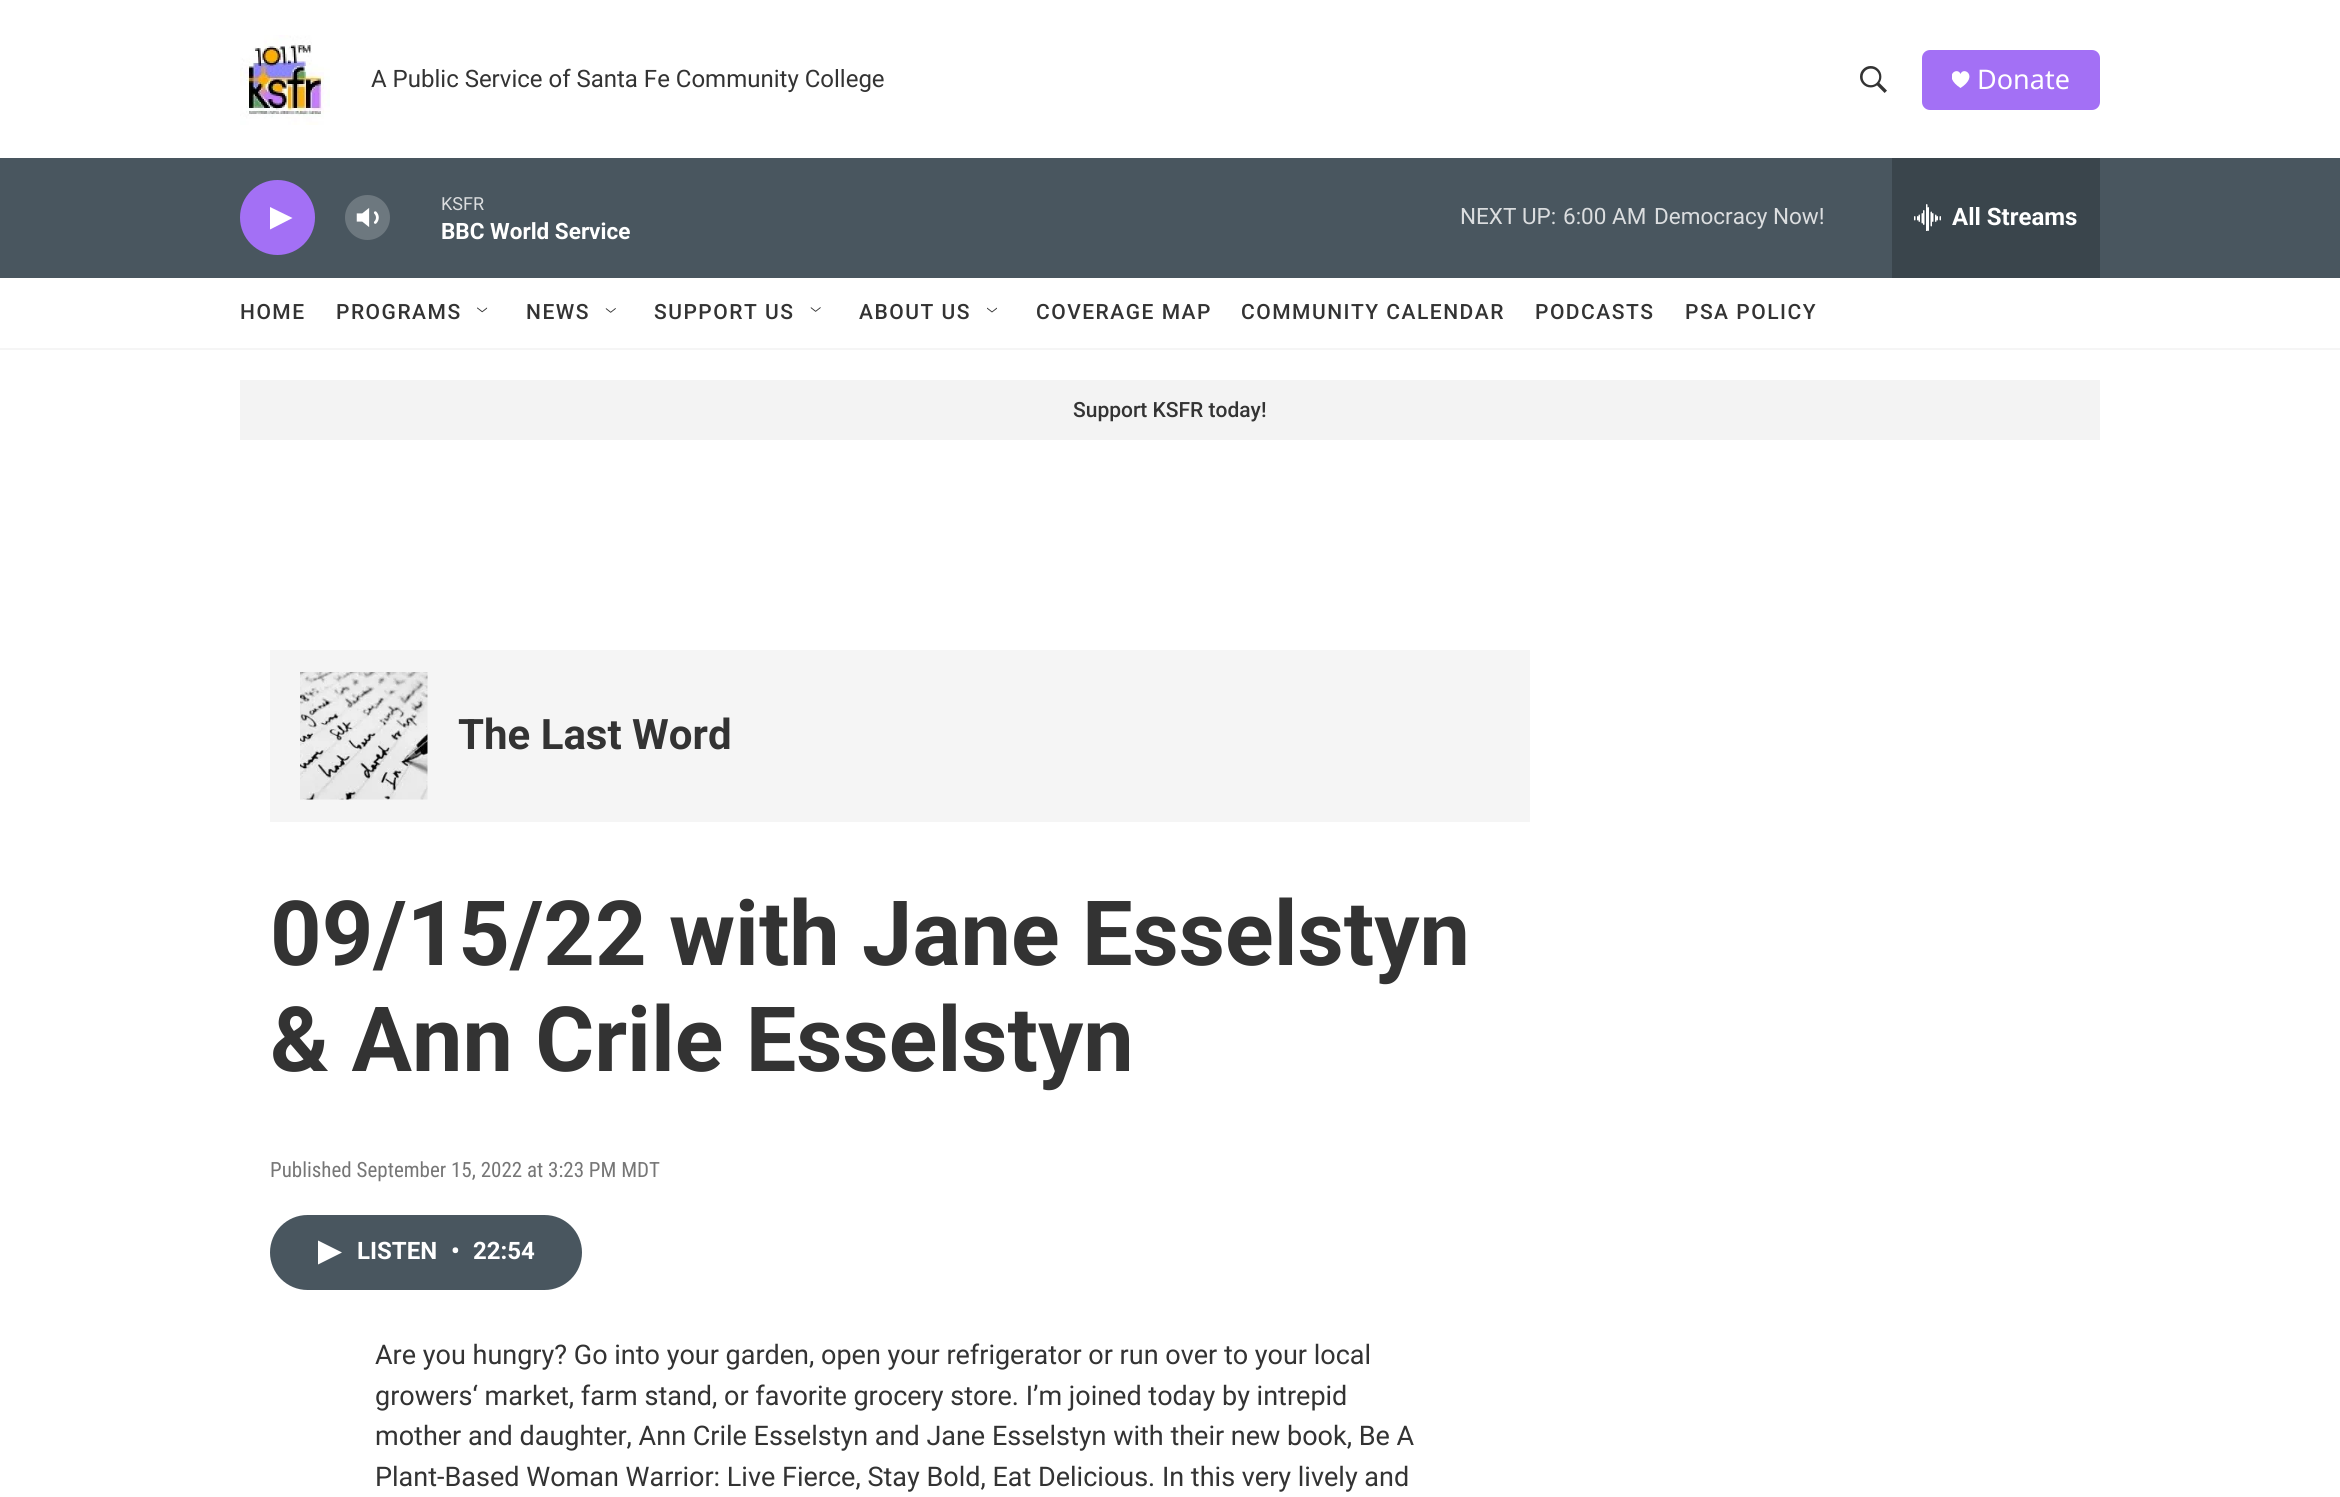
import math
import cairocffi as cairo

surface = cairo.ImageSurface(cairo.FORMAT_RGB24, 2340, 1497)
cr = cairo.Context(surface)
options = cairo.FontOptions()
options.set_hint_metrics(cairo.HINT_METRICS_OFF)
options.set_hint_style(cairo.HINT_STYLE_NONE)
cr.set_font_options(options)
cr.set_miter_limit(4)


def use_color(code):
    cr.set_source_rgb(*(v / 255 for v in bytes.fromhex(code[-6:])))


def spaced_text(x, y, s, letter, word):
    cr.move_to(x, y)
    for ch in s:
        cr.show_text(ch)
        cr.rel_move_to(letter + word * (ch == ' '), 0)


def round_rect(x, y, w, h, r):
    cr.new_sub_path()
    for i, (u, v) in enumerate([(x + w - r, y + h - r), (x + r, y + h - r), (x + r, y + r), (x + w - r, y + r)]):
        cr.arc(u, v, r, i * math.pi / 2, (i + 1) * math.pi / 2)
    cr.close_path()


def picture(path, x, y, w, h):
    cr.save()
    cr.set_source_surface(cairo.ImageSurface.create_from_png(path), x, y)
    cr.rectangle(x, y, w, h)
    cr.fill()
    cr.restore()


use_color("#ffffff")
cr.paint()
use_color("#f5f5f5")
cr.rectangle(0, 348, 2340, 2)
cr.fill()
picture("img1.png", 240, 35, 90, 90)
cr.select_font_face("Roboto")
cr.set_font_size(24)
use_color("#333333")
cr.move_to(371, 87)
cr.show_text("A Public Service of Santa Fe Community College")
picture("img2.png", 1860, 66, 27, 27)
use_color("#a370f5")
round_rect(1922, 50, 178, 60, 8)
cr.fill()
cr.save()
cr.rectangle(1952, 71, 18, 18)
cr.clip()
use_color("#ffffff")
cr.new_path()
cr.move_to(1960.5, 74)
cr.curve_to(1957.5, 66, 1942, 76, 1960.5, 88)
cr.curve_to(1979, 76, 1963.5, 66, 1960.5, 74)
cr.close_path()
cr.fill()
cr.restore()
cr.select_font_face("Noto Sans")
cr.set_font_size(27)
use_color("#ffffff")
cr.move_to(1977, 89)
cr.show_text("Donate")
use_color("#49565f")
cr.rectangle(0, 158, 2340, 120)
cr.fill()
use_color("#a370f5")
cr.arc(277.5, 217.5, 37.5, 0, 2 * math.pi)
cr.fill()
use_color("#ffffff")
cr.new_path()
cr.move_to(270, 207)
cr.line_to(292.5, 218)
cr.line_to(270, 229.5)
cr.close_path()
cr.fill()
picture("img3.png", 356, 208, 23, 19)
cr.set_source_rgba(1, 1, 1, 0.2)
cr.arc(367.5, 217.5, 22.5, 0, 2 * math.pi)
cr.fill()
cr.select_font_face("Roboto")
cr.set_font_size(18)
use_color("#dbdddf")
cr.move_to(441, 210)
cr.show_text("KSFR")
cr.select_font_face("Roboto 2", cairo.FONT_SLANT_NORMAL, cairo.FONT_WEIGHT_BOLD)
cr.set_font_size(22.5)
use_color("#ffffff")
cr.move_to(441, 239)
cr.show_text("BBC World Service")
cr.select_font_face("Roboto")
use_color("#dbdddf")
cr.move_to(1460, 224)
cr.show_text("NEXT UP:")
cr.move_to(1563, 224)
cr.show_text("6:00 AM")
cr.move_to(1654, 224)
cr.show_text("Democracy Now!")
use_color("#3a454c")
cr.rectangle(1892, 158, 208, 120)
cr.fill()
picture("img4.png", 1914, 204, 27, 27)
cr.select_font_face("Roboto 2", cairo.FONT_SLANT_NORMAL, cairo.FONT_WEIGHT_BOLD)
cr.set_font_size(24)
use_color("#ffffff")
cr.move_to(1952, 225)
cr.show_text("All Streams")
cr.select_font_face("Roboto Medium")
cr.set_font_size(21)
use_color("#333333")
spaced_text(240, 319, "HOME", 1.5, 0)
spaced_text(336, 319, "PROGRAMS", 1.5, 0)
picture("img5.png", 477, 307, 11, 6)
spaced_text(526, 319, "NEWS", 1.5, 0)
picture("img6.png", 605, 308, 11, 5)
spaced_text(654, 319, "SUPPORT US", 1.5, 0)
picture("img7.png", 810, 307, 11, 5)
spaced_text(859, 319, "ABOUT US", 1.5, 0)
picture("img8.png", 987, 307, 10, 6)
spaced_text(1036, 319, "COVERAGE MAP", 1.5, 0)
spaced_text(1241, 319, "COMMUNITY CALENDAR", 1.5, 0)
spaced_text(1535, 319, "PODCASTS", 1.5, 0)
spaced_text(1685, 319, "PSA POLICY", 1.5, 0)
use_color("#f3f3f3")
cr.rectangle(240, 380, 1860, 60)
cr.fill()
use_color("#333333")
cr.move_to(1073, 417)
cr.show_text("Support KSFR today!")
use_color("#f5f5f5")
cr.rectangle(270, 650, 1260, 172)
cr.fill()
picture("img9.png", 300, 672, 128, 128)
cr.select_font_face("Roboto", cairo.FONT_SLANT_NORMAL, cairo.FONT_WEIGHT_BOLD)
cr.set_font_size(42)
use_color("#333333")
cr.move_to(458, 749)
cr.show_text("The Last Word")
cr.set_font_size(90)
cr.move_to(270, 965)
cr.show_text("09/15/22 with Jane Esselstyn")
cr.move_to(270, 1071)
cr.show_text("& Ann Crile Esselstyn")
cr.select_font_face("Roboto Condensed")
cr.set_font_size(21)
use_color("#767676")
cr.move_to(270, 1177)
cr.show_text("Published September 15, 2022 at 3:23 PM MDT")
use_color("#49565f")
round_rect(270, 1215, 312, 75, 37.5)
cr.fill()
use_color("#ffffff")
cr.new_path()
cr.move_to(318, 1240.5)
cr.line_to(342, 1252.5)
cr.line_to(318, 1264.5)
cr.close_path()
cr.fill()
cr.select_font_face("Roboto 2", cairo.FONT_SLANT_NORMAL, cairo.FONT_WEIGHT_BOLD)
cr.set_font_size(24)
cr.move_to(357, 1259)
cr.show_text("LISTEN")
cr.move_to(451, 1259)
cr.show_text("•")
cr.move_to(473, 1259)
cr.show_text("22:54")
cr.select_font_face("Roboto")
cr.set_font_size(27)
use_color("#333333")
cr.move_to(375, 1364)
cr.show_text("Are you hungry? Go into your garden, open your refrigerator or run over to your local")
cr.move_to(375, 1405)
cr.show_text("growers‘ market, farm stand, or favorite grocery store. I’m joined today by intrepid")
cr.move_to(375, 1445)
cr.show_text("mother and daughter, Ann Crile Esselstyn and Jane Esselstyn with their new book, Be A")
cr.move_to(375, 1486)
cr.show_text("Plant-Based Woman Warrior: Live Fierce, Stay Bold, Eat Delicious. In this very lively and")
surface.write_to_png("result.png")
